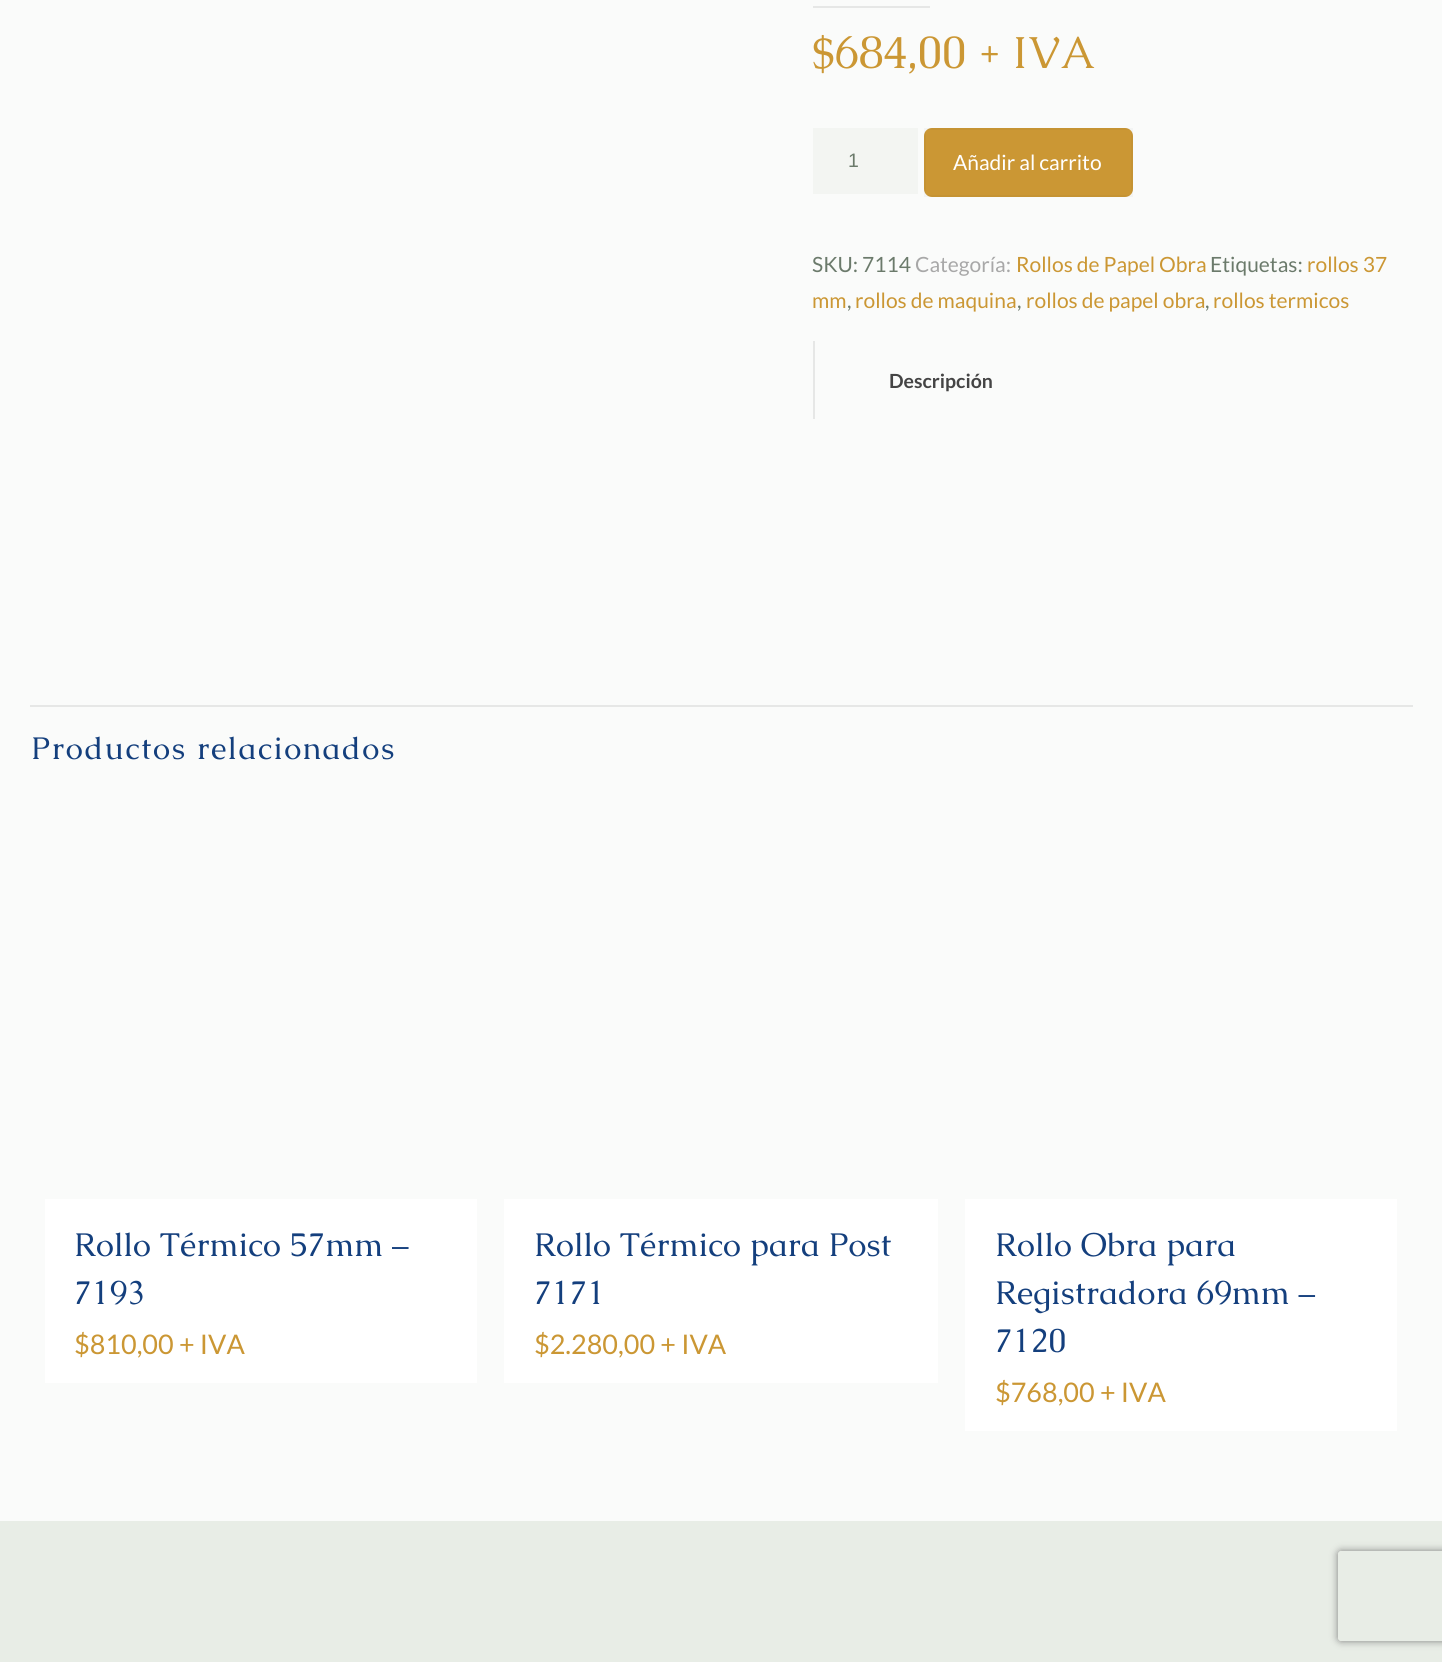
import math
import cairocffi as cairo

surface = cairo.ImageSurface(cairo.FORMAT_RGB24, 1442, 1662)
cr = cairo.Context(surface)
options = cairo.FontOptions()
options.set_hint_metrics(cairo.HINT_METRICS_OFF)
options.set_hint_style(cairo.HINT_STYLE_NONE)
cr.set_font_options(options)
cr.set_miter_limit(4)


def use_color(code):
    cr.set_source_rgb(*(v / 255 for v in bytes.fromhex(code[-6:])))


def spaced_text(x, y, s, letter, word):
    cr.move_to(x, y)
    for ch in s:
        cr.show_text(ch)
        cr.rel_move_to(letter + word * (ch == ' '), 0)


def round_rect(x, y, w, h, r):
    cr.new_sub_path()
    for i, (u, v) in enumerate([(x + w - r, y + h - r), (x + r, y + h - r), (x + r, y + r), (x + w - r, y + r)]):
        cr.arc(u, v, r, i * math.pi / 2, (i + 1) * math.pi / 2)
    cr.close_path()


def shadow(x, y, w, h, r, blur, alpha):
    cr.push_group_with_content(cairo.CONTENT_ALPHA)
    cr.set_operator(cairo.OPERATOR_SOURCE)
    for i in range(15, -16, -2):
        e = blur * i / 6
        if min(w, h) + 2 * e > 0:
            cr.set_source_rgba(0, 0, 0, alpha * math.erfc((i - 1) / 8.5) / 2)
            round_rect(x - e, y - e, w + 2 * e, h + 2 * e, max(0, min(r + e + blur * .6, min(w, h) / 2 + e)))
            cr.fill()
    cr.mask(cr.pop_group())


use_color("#fafbfa")
cr.paint()
use_color("#e6e7e6")
cr.rectangle(813, 6, 117, 2)
cr.fill()
cr.select_font_face("Caudex")
cr.set_font_size(45)
use_color("#cb9734")
cr.move_to(812, 68)
cr.show_text("$684,00 + IVA")
use_color("#f3f5f2")
cr.rectangle(813, 128, 105, 66)
cr.fill()
cr.select_font_face("Liberation Sans")
cr.set_font_size(19.5)
use_color("#6b7a6b")
cr.move_to(848, 167)
cr.show_text("1")
use_color("#cb9734")
round_rect(924, 128, 209, 69, 8)
cr.fill()
cr.rectangle(925, 129, 207, 67)
cr.set_source_rgba(0, 0, 0, 0.03)
cr.stroke()
cr.select_font_face("Lato")
cr.set_font_size(21)
use_color("#ffffff")
cr.move_to(953, 170)
cr.show_text("Añadir al carrito")
use_color("#6b7a6b")
cr.move_to(812, 272)
cr.show_text("SKU: 7114")
use_color("#a8a8a8")
cr.move_to(915, 272)
cr.show_text("Categoría:")
use_color("#cb9734")
cr.move_to(1016, 272)
cr.show_text("Rollos de Papel Obra")
use_color("#6b7a6b")
cr.move_to(1210, 272)
cr.show_text("Etiquetas:")
use_color("#cb9734")
cr.move_to(1307, 272)
cr.show_text("rollos 37")
cr.move_to(812, 308)
cr.show_text("mm")
use_color("#6b7a6b")
cr.move_to(847, 308)
cr.show_text(",")
use_color("#cb9734")
cr.move_to(855, 308)
cr.show_text("rollos de maquina")
use_color("#6b7a6b")
cr.move_to(1017, 308)
cr.show_text(",")
use_color("#cb9734")
cr.move_to(1026, 308)
cr.show_text("rollos de papel obra")
use_color("#6b7a6b")
cr.move_to(1205, 308)
cr.show_text(",")
use_color("#cb9734")
cr.move_to(1213, 308)
cr.show_text("rollos termicos")
use_color("#e6e7e6")
cr.rectangle(813, 341, 2, 78)
cr.fill()
cr.select_font_face("Lato", cairo.FONT_SLANT_NORMAL, cairo.FONT_WEIGHT_BOLD)
cr.set_font_size(19.5)
use_color("#444444")
cr.move_to(889, 388)
cr.show_text("Descripción")
use_color("#e6e7e6")
cr.rectangle(30, 705, 1383, 2)
cr.fill()
cr.select_font_face("Caudex")
cr.set_font_size(31.5)
use_color("#143f7d")
spaced_text(31, 759, "Productos relacionados", 1.5, 0)
use_color("#ffffff")
cr.rectangle(45, 1199, 432, 184)
cr.fill()
cr.set_font_size(33)
use_color("#143f7d")
cr.move_to(74, 1256)
cr.show_text("Rollo Térmico 57mm –")
cr.move_to(74, 1304)
cr.show_text("7193")
cr.select_font_face("Lato")
cr.set_font_size(27)
use_color("#cb9734")
cr.move_to(74, 1354)
cr.show_text("$810,00 + IVA")
use_color("#ffffff")
cr.rectangle(504, 1199, 434, 184)
cr.fill()
cr.select_font_face("Caudex")
cr.set_font_size(33)
use_color("#143f7d")
cr.move_to(534, 1256)
cr.show_text("Rollo Térmico para Post")
cr.move_to(534, 1304)
cr.show_text("7171")
cr.select_font_face("Lato")
cr.set_font_size(27)
use_color("#cb9734")
cr.move_to(534, 1354)
cr.show_text("$2.280,00 + IVA")
use_color("#ffffff")
cr.rectangle(965, 1199, 432, 232)
cr.fill()
cr.select_font_face("Caudex")
cr.set_font_size(33)
use_color("#143f7d")
cr.move_to(995, 1256)
cr.show_text("Rollo Obra para")
cr.move_to(995, 1304)
cr.show_text("Registradora 69mm –")
cr.move_to(995, 1352)
cr.show_text("7120")
cr.select_font_face("Lato")
cr.set_font_size(27)
use_color("#cb9734")
cr.move_to(995, 1402)
cr.show_text("$768,00 + IVA")
use_color("#e8ede6")
cr.rectangle(0, 1521, 1442, 141)
cr.fill()
cr.save()
cr.set_fill_rule(cairo.FILL_RULE_EVEN_ODD)
cr.new_path()
cr.move_to(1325, 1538)
cr.line_to(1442, 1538)
cr.line_to(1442, 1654)
cr.line_to(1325, 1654)
cr.close_path()
cr.move_to(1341, 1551)
cr.line_to(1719, 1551)
cr.curve_to(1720.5, 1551, 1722, 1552.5, 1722, 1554)
cr.line_to(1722, 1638)
cr.curve_to(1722, 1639.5, 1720.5, 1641, 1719, 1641)
cr.line_to(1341, 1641)
cr.curve_to(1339.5, 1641, 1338, 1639.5, 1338, 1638)
cr.line_to(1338, 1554)
cr.curve_to(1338, 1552.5, 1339.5, 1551, 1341, 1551)
cr.close_path()
cr.clip()
use_color("#808080")
shadow(1338, 1551, 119, 90, 3, 4, 1)
cr.restore()
surface.write_to_png("result.png")
